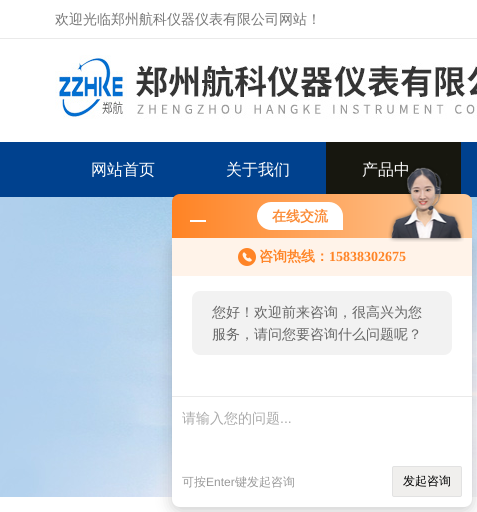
import math
import cairocffi as cairo

surface = cairo.ImageSurface(cairo.FORMAT_RGB24, 477, 512)
cr = cairo.Context(surface)
options = cairo.FontOptions()
options.set_hint_metrics(cairo.HINT_METRICS_OFF)
options.set_hint_style(cairo.HINT_STYLE_NONE)
cr.set_font_options(options)
cr.set_miter_limit(4)


def use_color(code):
    cr.set_source_rgb(*(v / 255 for v in bytes.fromhex(code[-6:])))


def round_rect(x, y, w, h, r):
    cr.new_sub_path()
    for i, (u, v) in enumerate([(x + w - r, y + h - r), (x + r, y + h - r), (x + r, y + r), (x + w - r, y + r)]):
        cr.arc(u, v, r, i * math.pi / 2, (i + 1) * math.pi / 2)
    cr.close_path()


def shadow(x, y, w, h, r, blur, alpha):
    cr.push_group_with_content(cairo.CONTENT_ALPHA)
    cr.set_operator(cairo.OPERATOR_SOURCE)
    for i in range(15, -16, -2):
        e = blur * i / 6
        if min(w, h) + 2 * e > 0:
            cr.set_source_rgba(0, 0, 0, alpha * math.erfc((i - 1) / 8.5) / 2)
            round_rect(x - e, y - e, w + 2 * e, h + 2 * e, max(0, min(r + e + blur * .6, min(w, h) / 2 + e)))
            cr.fill()
    cr.mask(cr.pop_group())


def picture(path, x, y, w, h):
    cr.save()
    cr.set_source_surface(cairo.ImageSurface.create_from_png(path), x, y)
    cr.rectangle(x, y, w, h)
    cr.fill()
    cr.restore()


use_color("#ffffff")
cr.paint()
use_color("#eaeaea")
cr.rectangle(0, 38, 477, 1)
cr.fill()
cr.select_font_face("WenQuanYi Zen Hei Medium")
cr.set_font_size(14)
use_color("#777777")
cr.move_to(55, 24)
cr.show_text("欢迎光临郑州航科仪器仪表有限公司网站！")
picture("img1.png", 55, 55, 422, 64)
use_color("#00418e")
cr.rectangle(0, 142, 477, 55)
cr.fill()
cr.set_font_size(16)
use_color("#ffffff")
cr.move_to(91, 175)
cr.show_text("网站首页")
cr.move_to(226, 175)
cr.show_text("关于我们")
use_color("#17170f")
cr.rectangle(326, 142, 135, 52)
cr.fill()
use_color("#ffffff")
cr.move_to(362, 175)
cr.show_text("产品中")
picture("img2.png", 0, 197, 477, 300)
use_color("#000000")
shadow(172, 242, 300, 269, 8, 8, 0.2)
gradient = cairo.LinearGradient(172, 216, 472, 216)
gradient.add_color_stop_rgba(0, 1, 0.514, 0.141, 1)
gradient.add_color_stop_rgba(1, 0.996, 0.796, 0.612, 1)
cr.set_source(gradient)
cr.new_path()
cr.move_to(180, 194)
cr.line_to(464, 194)
cr.curve_to(468.5, 194, 472, 197.5, 472, 202)
cr.line_to(472, 238)
cr.line_to(172, 238)
cr.line_to(172, 202)
cr.curve_to(172, 197.5, 175.5, 194, 180, 194)
cr.close_path()
cr.fill()
use_color("#ffffff")
cr.rectangle(190, 220, 16, 2)
cr.fill()
cr.new_path()
cr.move_to(271, 202)
cr.line_to(329, 202)
cr.curve_to(336.5, 202, 343, 208.5, 343, 216)
cr.line_to(343, 230)
cr.line_to(271, 230)
cr.curve_to(263.5, 230, 257, 223.5, 257, 216)
cr.curve_to(257, 208.5, 263.5, 202, 271, 202)
cr.close_path()
cr.fill()
cr.select_font_face("WenQuanYi Zen Hei", cairo.FONT_SLANT_NORMAL, cairo.FONT_WEIGHT_BOLD)
cr.set_font_size(14)
use_color("#fb8b36")
cr.move_to(272, 221)
cr.show_text("在线交流")
use_color("#ffffff")
cr.new_path()
cr.move_to(172, 238)
cr.line_to(472, 238)
cr.line_to(472, 499)
cr.curve_to(472, 503.5, 468.5, 507, 464, 507)
cr.line_to(180, 507)
cr.curve_to(175.5, 507, 172, 503.5, 172, 499)
cr.close_path()
cr.fill()
use_color("#fff3e9")
cr.rectangle(172, 238, 300, 38)
cr.fill()
picture("img3.png", 388, 165, 76, 77)
picture("img4.png", 238, 248, 18, 18)
use_color("#ff8426")
cr.move_to(259, 261)
cr.show_text("咨询热线：")
cr.select_font_face("Liberation Serif", cairo.FONT_SLANT_NORMAL, cairo.FONT_WEIGHT_BOLD)
cr.move_to(329, 261)
cr.show_text("15838302675")
use_color("#f2f2f2")
round_rect(192, 291, 260, 64, 8)
cr.fill()
cr.select_font_face("WenQuanYi Zen Hei Medium")
use_color("#666666")
cr.move_to(212, 317)
cr.show_text("您好！欢迎前来咨询，很高兴为您")
cr.move_to(212, 339)
cr.show_text("服务，请问您要咨询什么问题呢？")
use_color("#eaeaea")
cr.rectangle(172, 396, 300, 1)
cr.fill()
use_color("#aaaaaa")
cr.move_to(182, 423)
cr.show_text("请输入您的问题")
cr.select_font_face("Liberation Sans")
cr.move_to(280, 423)
cr.show_text("...")
cr.select_font_face("WenQuanYi Zen Hei Medium")
cr.set_font_size(12)
use_color("#999999")
cr.move_to(182, 486)
cr.show_text("可按")
cr.select_font_face("Liberation Sans")
cr.move_to(206, 486)
cr.show_text("Enter")
cr.select_font_face("WenQuanYi Zen Hei Medium")
cr.move_to(235, 486)
cr.show_text("键发起咨询")
use_color("#f0efed")
round_rect(392.5, 466.5, 69, 30, 1.5)
cr.fill_preserve()
use_color("#e2e2e2")
cr.set_line_width(1)
cr.stroke()
use_color("#000000")
cr.move_to(403, 485)
cr.show_text("发起咨询")
surface.write_to_png("result.png")
